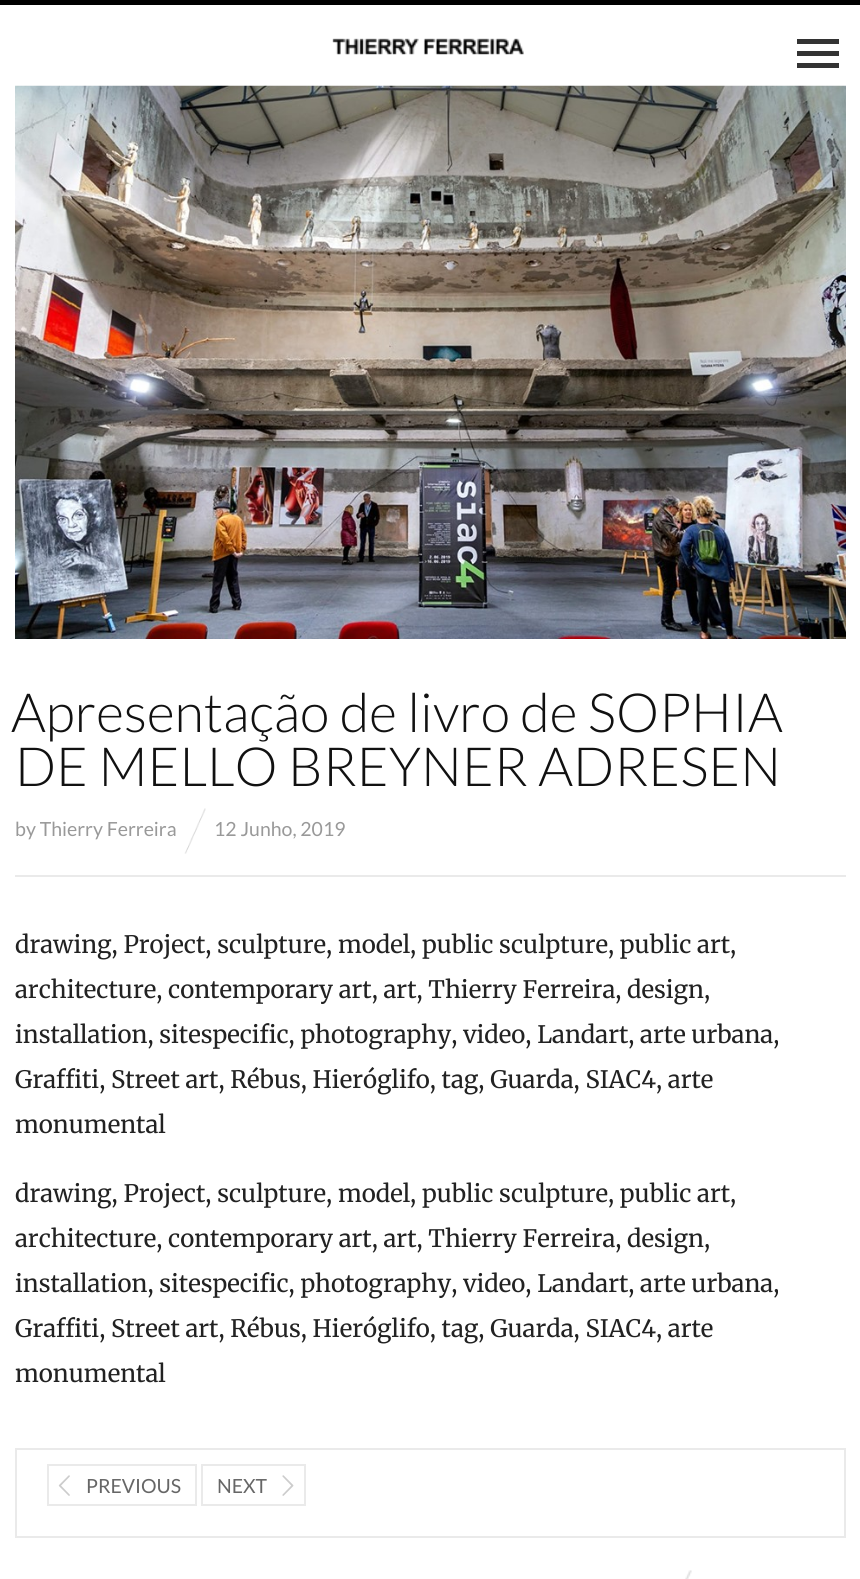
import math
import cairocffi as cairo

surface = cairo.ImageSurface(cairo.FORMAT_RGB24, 860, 1579)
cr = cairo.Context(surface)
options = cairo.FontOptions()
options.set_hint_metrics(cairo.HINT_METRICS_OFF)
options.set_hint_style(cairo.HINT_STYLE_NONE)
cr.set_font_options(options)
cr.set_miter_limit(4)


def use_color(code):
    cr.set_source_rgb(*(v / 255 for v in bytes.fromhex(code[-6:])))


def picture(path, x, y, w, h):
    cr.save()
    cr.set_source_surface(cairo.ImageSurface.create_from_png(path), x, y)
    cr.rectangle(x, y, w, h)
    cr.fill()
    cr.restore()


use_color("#ffffff")
cr.paint()
use_color("#333333")
cr.rectangle(797, 51, 42, 5)
cr.fill()
cr.rectangle(797, 39, 42, 5)
cr.fill()
cr.rectangle(797, 63, 42, 5)
cr.fill()
use_color("#000000")
cr.rectangle(0, 0, 860, 5)
cr.fill()
picture("img1.png", 332, 38, 192, 17)
picture("img2.png", 15, 85, 831, 554)
use_color("#eaeaea")
cr.rectangle(15, 875, 831, 2)
cr.fill()
cr.select_font_face("Lato Light")
cr.set_font_size(54)
use_color("#111111")
cr.move_to(11, 732)
cr.show_text("Apresentação de livro de SOPHIA")
cr.move_to(15, 786)
cr.show_text("DE MELLO BREYNER ADRESEN")
cr.select_font_face("Lato")
cr.set_font_size(19.5)
use_color("#999999")
cr.move_to(15, 836)
cr.show_text("by Thierry Ferreira")
picture("img3.png", 184, 808, 22, 46)
cr.move_to(214, 836)
cr.show_text("12 Junho, 2019")
cr.select_font_face("Merriweather Light")
cr.set_font_size(24)
use_color("#222222")
cr.move_to(15, 953)
cr.show_text("drawing, Project, sculpture, model, public sculpture, public art,")
cr.move_to(15, 998)
cr.show_text("architecture, contemporary art, art, Thierry Ferreira, design,")
cr.move_to(15, 1043)
cr.show_text("installation, sitespecific, photography, video, Landart, arte urbana,")
cr.move_to(15, 1088)
cr.show_text("Graffiti, Street art, Rébus, Hieróglifo, tag, Guarda, SIAC4, arte")
cr.move_to(15, 1133)
cr.show_text("monumental")
cr.move_to(15, 1202)
cr.show_text("drawing, Project, sculpture, model, public sculpture, public art,")
cr.move_to(15, 1247)
cr.show_text("architecture, contemporary art, art, Thierry Ferreira, design,")
cr.move_to(15, 1292)
cr.show_text("installation, sitespecific, photography, video, Landart, arte urbana,")
cr.move_to(15, 1337)
cr.show_text("Graffiti, Street art, Rébus, Hieróglifo, tag, Guarda, SIAC4, arte")
cr.move_to(15, 1382)
cr.show_text("monumental")
cr.rectangle(16, 1449, 829, 88)
use_color("#eaeaea")
cr.stroke()
cr.rectangle(48, 1465, 148, 40)
cr.stroke()
picture("img4.png", 58, 1475, 12, 21)
cr.select_font_face("Lato")
cr.set_font_size(19.5)
use_color("#666666")
cr.move_to(86, 1493)
cr.show_text("PREVIOUS")
cr.rectangle(202, 1465, 103, 40)
use_color("#eaeaea")
cr.stroke()
use_color("#666666")
cr.move_to(217, 1493)
cr.show_text("NEXT")
picture("img5.png", 282, 1475, 12, 21)
picture("img6.png", 685, 1570, 7, 9)
surface.write_to_png("result.png")
